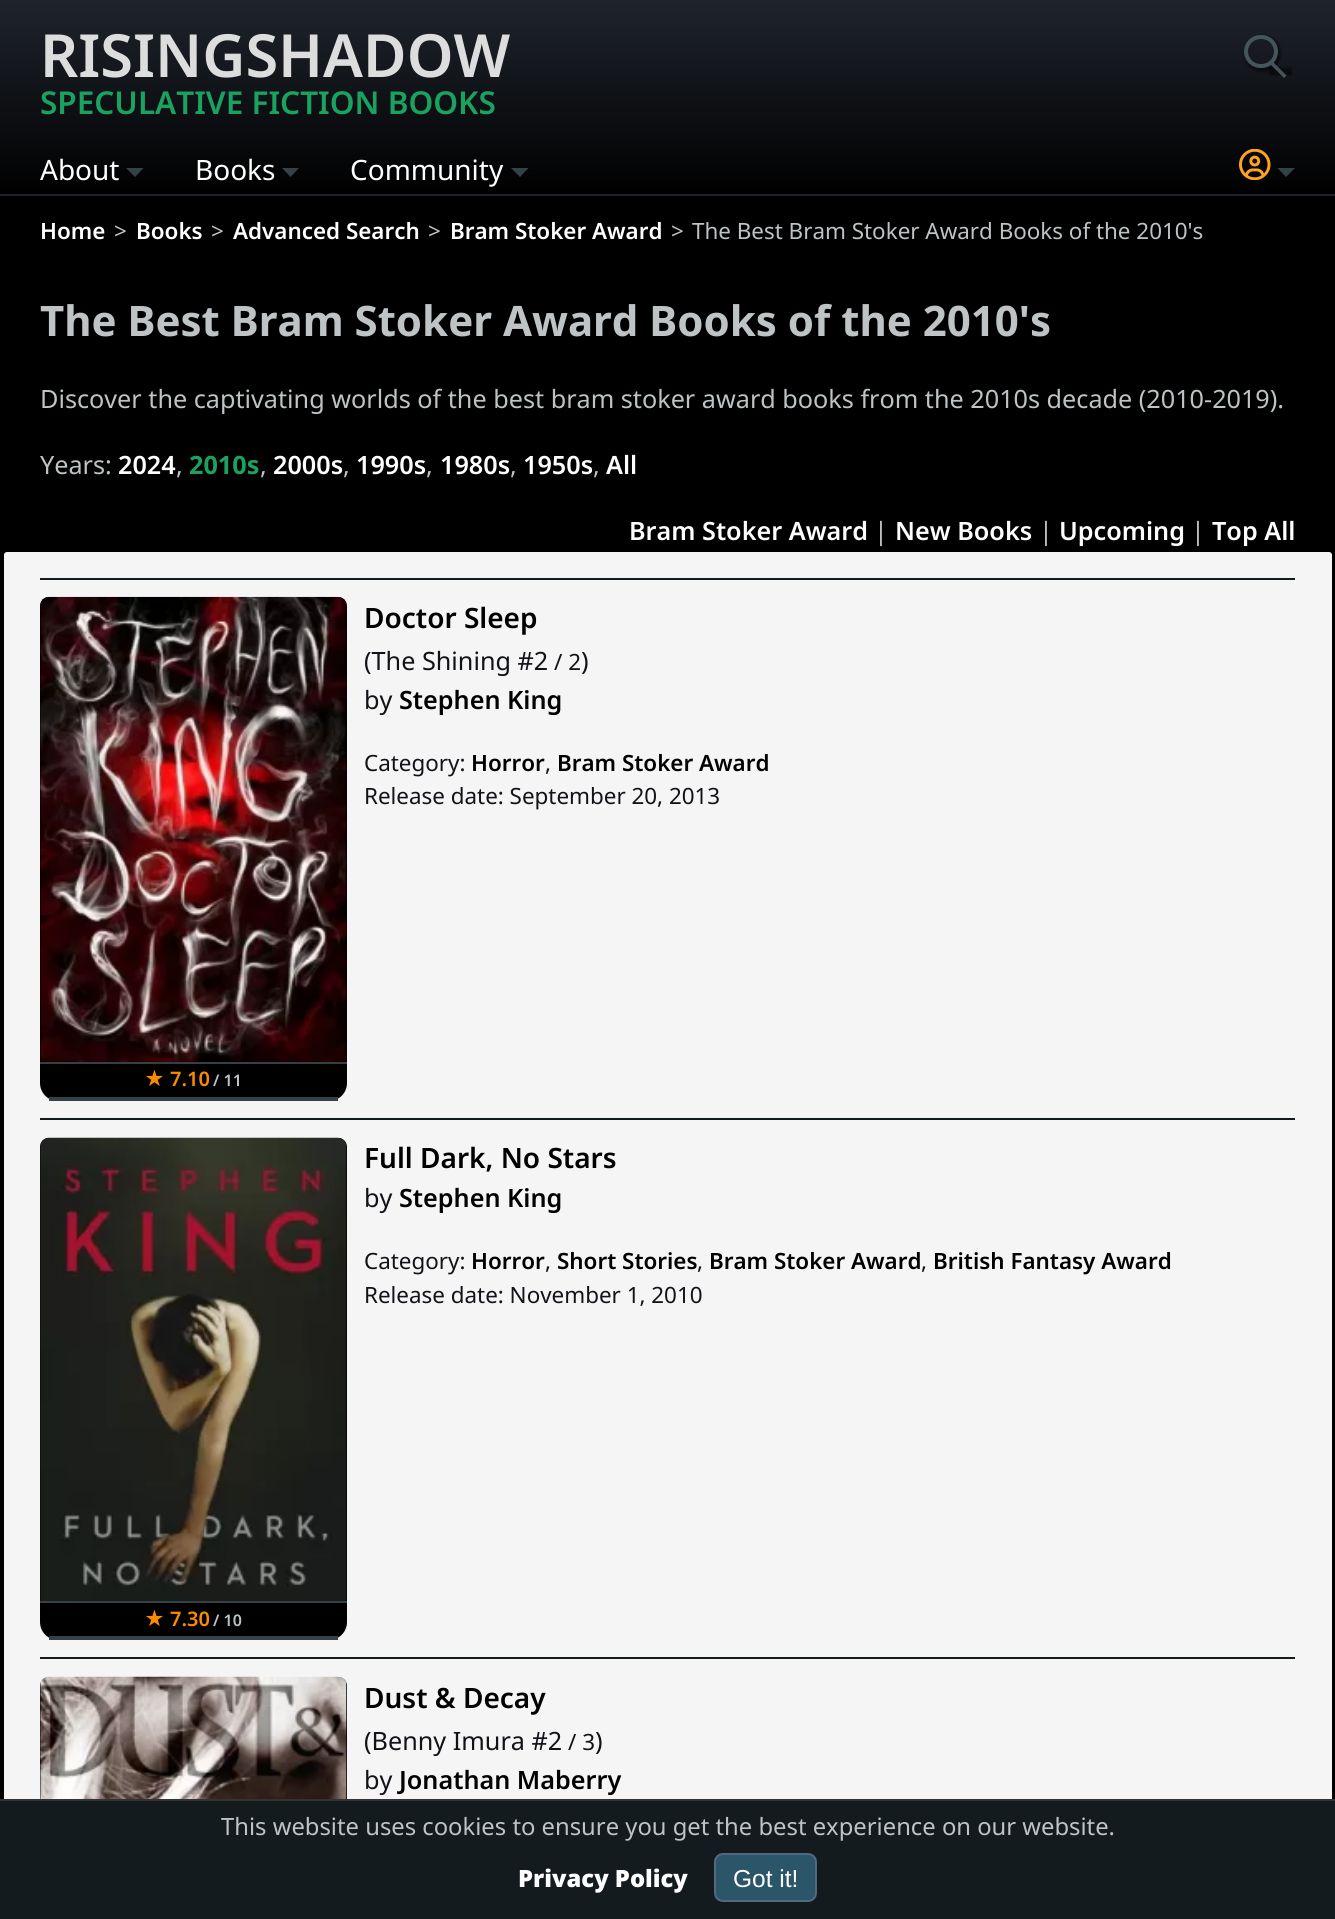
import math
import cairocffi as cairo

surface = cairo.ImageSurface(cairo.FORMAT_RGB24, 1335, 1919)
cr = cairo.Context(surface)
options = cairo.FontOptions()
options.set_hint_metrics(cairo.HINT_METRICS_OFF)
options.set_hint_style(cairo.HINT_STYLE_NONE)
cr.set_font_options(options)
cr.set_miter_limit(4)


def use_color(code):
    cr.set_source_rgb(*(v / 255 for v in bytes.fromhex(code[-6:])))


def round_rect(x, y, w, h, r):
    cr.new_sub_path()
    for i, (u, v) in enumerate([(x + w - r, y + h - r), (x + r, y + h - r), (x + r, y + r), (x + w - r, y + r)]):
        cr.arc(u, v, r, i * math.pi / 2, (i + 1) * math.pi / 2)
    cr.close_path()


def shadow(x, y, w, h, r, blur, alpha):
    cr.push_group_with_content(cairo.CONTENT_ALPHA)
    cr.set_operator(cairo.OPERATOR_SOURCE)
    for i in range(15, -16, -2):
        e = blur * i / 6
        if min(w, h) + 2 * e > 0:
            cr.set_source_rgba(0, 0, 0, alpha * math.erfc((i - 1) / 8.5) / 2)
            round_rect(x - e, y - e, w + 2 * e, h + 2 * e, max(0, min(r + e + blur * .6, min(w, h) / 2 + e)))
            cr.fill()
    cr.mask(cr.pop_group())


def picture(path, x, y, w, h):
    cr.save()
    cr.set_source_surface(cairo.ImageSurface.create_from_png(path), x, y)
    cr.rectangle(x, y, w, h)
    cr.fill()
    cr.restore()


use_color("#ffffff")
cr.paint()
gradient = cairo.LinearGradient(668, 0, 668, 194)
gradient.add_color_stop_rgba(0, 0.122, 0.141, 0.173, 1)
gradient.add_color_stop_rgba(1, 0, 0, 0, 1)
cr.set_source(gradient)
cr.rectangle(0, 0, 1335, 194)
cr.fill()
gradient = cairo.LinearGradient(668, 194, 668, 389)
gradient.add_color_stop_rgba(0, 0.122, 0.141, 0.173, 1)
gradient.add_color_stop_rgba(1, 0, 0, 0, 1)
cr.set_source(gradient)
cr.rectangle(0, 194, 1335, 2)
cr.fill()
cr.select_font_face("Noto Sans SemiBold")
cr.set_font_size(59.5)
use_color("#dddddd")
cr.move_to(40, 77)
cr.show_text("RISINGSHADOW")
cr.set_font_size(31.5)
use_color("#1aa260")
cr.move_to(40, 114)
cr.show_text("SPECULATIVE FICTION BOOKS")
cr.save()
cr.set_fill_rule(cairo.FILL_RULE_EVEN_ODD)
cr.new_path()
cr.move_to(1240, 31)
cr.line_to(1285, 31)
cr.line_to(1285, 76)
cr.line_to(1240, 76)
cr.close_path()
cr.move_to(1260.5, 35)
cr.line_to(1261.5, 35)
cr.curve_to(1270.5, 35, 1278, 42.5, 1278, 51.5)
cr.curve_to(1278, 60.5, 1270.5, 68, 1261.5, 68)
cr.line_to(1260.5, 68)
cr.curve_to(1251.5, 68, 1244, 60.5, 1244, 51.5)
cr.curve_to(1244, 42.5, 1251.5, 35, 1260.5, 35)
cr.close_path()
cr.clip()
use_color("#000000")
shadow(1244, 35, 37, 37, 18.5, 1, 0.5)
cr.restore()
round_rect(1246, 37, 30, 29, 14.5)
use_color("#45555c")
cr.set_line_width(4)
cr.stroke()
use_color("#000000")
shadow(1269, 68, 23, 7, 0, 1, 0.5)
use_color("#45555c")
cr.new_path()
cr.move_to(1273, 62)
cr.line_to(1286.5, 75.5)
cr.line_to(1284, 78)
cr.line_to(1270.5, 64.5)
cr.close_path()
cr.fill()
cr.select_font_face("Noto Sans")
cr.set_font_size(28)
use_color("#ffffff")
cr.move_to(40, 180)
cr.show_text("About")
use_color("#344248")
cr.new_path()
cr.move_to(126, 168)
cr.line_to(143.5, 168)
cr.line_to(135, 177)
cr.close_path()
cr.fill()
use_color("#ffffff")
cr.move_to(195, 180)
cr.show_text("Books")
use_color("#344248")
cr.new_path()
cr.move_to(282, 168)
cr.line_to(299, 168)
cr.line_to(290.5, 177)
cr.close_path()
cr.fill()
use_color("#ffffff")
cr.move_to(350, 180)
cr.show_text("Community")
use_color("#344248")
cr.new_path()
cr.move_to(511, 168)
cr.line_to(528.5, 168)
cr.line_to(520, 177)
cr.close_path()
cr.fill()
picture("img1.png", 1239, 149, 32, 31)
cr.new_path()
cr.move_to(1277.5, 168)
cr.line_to(1295, 168)
cr.line_to(1286, 177)
cr.close_path()
cr.fill()
use_color("#000000")
cr.rectangle(0, 196, 1335, 1603)
cr.fill()
cr.select_font_face("Noto Sans SemiBold")
cr.set_font_size(22.4)
use_color("#ffffff")
cr.move_to(40, 239)
cr.show_text("Home")
cr.select_font_face("Noto Sans")
use_color("#bec3c5")
cr.move_to(114, 239)
cr.show_text(">")
cr.select_font_face("Noto Sans SemiBold")
use_color("#ffffff")
cr.move_to(136, 239)
cr.show_text("Books")
cr.select_font_face("Noto Sans")
use_color("#bec3c5")
cr.move_to(211, 239)
cr.show_text(">")
cr.select_font_face("Noto Sans SemiBold")
use_color("#ffffff")
cr.move_to(233, 239)
cr.show_text("Advanced Search")
cr.select_font_face("Noto Sans")
use_color("#bec3c5")
cr.move_to(428, 239)
cr.show_text(">")
cr.select_font_face("Noto Sans SemiBold")
use_color("#ffffff")
cr.move_to(450, 239)
cr.show_text("Bram Stoker Award")
cr.select_font_face("Noto Sans")
use_color("#bec3c5")
cr.move_to(671, 239)
cr.show_text(">")
cr.move_to(692, 239)
cr.show_text("The Best Bram Stoker Award Books of the 2010's")
cr.select_font_face("Noto Sans", cairo.FONT_SLANT_NORMAL, cairo.FONT_WEIGHT_BOLD)
cr.set_font_size(42)
cr.move_to(40, 336)
cr.show_text("The Best Bram Stoker Award Books of the 2010's")
cr.select_font_face("Noto Sans")
cr.set_font_size(25.2)
cr.move_to(40, 408)
cr.show_text("Discover the captivating worlds of the best bram stoker award books from the 2010s decade (2010-2019).")
cr.move_to(40, 474)
cr.show_text("Years:")
cr.select_font_face("Noto Sans SemiBold")
use_color("#ffffff")
cr.move_to(118, 474)
cr.show_text("2024")
cr.select_font_face("Noto Sans")
use_color("#bec3c5")
cr.move_to(176, 474)
cr.show_text(",")
cr.select_font_face("Noto Sans", cairo.FONT_SLANT_NORMAL, cairo.FONT_WEIGHT_BOLD)
use_color("#1aa260")
cr.move_to(189, 474)
cr.show_text("2010s")
cr.select_font_face("Noto Sans")
use_color("#bec3c5")
cr.move_to(260, 474)
cr.show_text(",")
cr.select_font_face("Noto Sans SemiBold")
use_color("#ffffff")
cr.move_to(273, 474)
cr.show_text("2000s")
cr.select_font_face("Noto Sans")
use_color("#bec3c5")
cr.move_to(343, 474)
cr.show_text(",")
cr.select_font_face("Noto Sans SemiBold")
use_color("#ffffff")
cr.move_to(356, 474)
cr.show_text("1990s")
cr.select_font_face("Noto Sans")
use_color("#bec3c5")
cr.move_to(426, 474)
cr.show_text(",")
cr.select_font_face("Noto Sans SemiBold")
use_color("#ffffff")
cr.move_to(440, 474)
cr.show_text("1980s")
cr.select_font_face("Noto Sans")
use_color("#bec3c5")
cr.move_to(510, 474)
cr.show_text(",")
cr.select_font_face("Noto Sans SemiBold")
use_color("#ffffff")
cr.move_to(523, 474)
cr.show_text("1950s")
cr.select_font_face("Noto Sans")
use_color("#bec3c5")
cr.move_to(593, 474)
cr.show_text(",")
cr.select_font_face("Noto Sans SemiBold")
use_color("#ffffff")
cr.move_to(606, 474)
cr.show_text("All")
cr.move_to(629, 540)
cr.show_text("Bram Stoker Award")
cr.select_font_face("Noto Sans")
use_color("#bec3c5")
cr.move_to(874, 540)
cr.show_text("|")
cr.select_font_face("Noto Sans SemiBold")
use_color("#ffffff")
cr.move_to(895, 540)
cr.show_text("New Books")
cr.select_font_face("Noto Sans")
use_color("#bec3c5")
cr.move_to(1039, 540)
cr.show_text("|")
cr.select_font_face("Noto Sans SemiBold")
use_color("#ffffff")
cr.move_to(1059, 540)
cr.show_text("Upcoming")
cr.select_font_face("Noto Sans")
use_color("#bec3c5")
cr.move_to(1191, 540)
cr.show_text("|")
cr.select_font_face("Noto Sans SemiBold")
use_color("#ffffff")
cr.move_to(1212, 540)
cr.show_text("Top All")
use_color("#f5f5f5")
round_rect(3, 551, 1330, 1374, 4)
cr.fill_preserve()
use_color("#000000")
cr.set_line_width(2)
cr.stroke()
cr.set_font_size(28)
cr.move_to(364, 628)
cr.show_text("Doctor Sleep")
cr.select_font_face("Noto Sans")
cr.set_font_size(25.2)
use_color("#111318")
cr.move_to(364, 670)
cr.show_text("(The Shining #2")
cr.set_font_size(22.4)
cr.move_to(554, 670)
cr.show_text("/ 2")
cr.set_font_size(25.2)
cr.move_to(581, 670)
cr.show_text(")")
cr.move_to(364, 709)
cr.show_text("by")
cr.select_font_face("Noto Sans SemiBold")
use_color("#000000")
cr.move_to(399, 709)
cr.show_text("Stephen King")
cr.select_font_face("Noto Sans")
cr.set_font_size(22.4)
use_color("#111318")
cr.move_to(364, 771)
cr.show_text("Category:")
cr.select_font_face("Noto Sans SemiBold")
use_color("#000000")
cr.move_to(471, 771)
cr.show_text("Horror")
cr.select_font_face("Noto Sans")
use_color("#111318")
cr.move_to(545, 771)
cr.show_text(",")
cr.select_font_face("Noto Sans SemiBold")
use_color("#000000")
cr.move_to(557, 771)
cr.show_text("Bram Stoker Award")
cr.select_font_face("Noto Sans")
use_color("#111318")
cr.move_to(364, 804)
cr.show_text("Release date: September 20, 2013")
use_color("#141b1e")
cr.rectangle(40, 578, 1255, 2)
cr.fill()
use_color("#000000")
cr.new_path()
cr.move_to(49, 597)
cr.line_to(338, 597)
cr.curve_to(343, 597, 347, 601, 347, 606)
cr.line_to(347, 1083)
cr.curve_to(347, 1093, 339, 1101, 329, 1101)
cr.line_to(58, 1101)
cr.curve_to(48, 1101, 40, 1093, 40, 1083)
cr.line_to(40, 606)
cr.curve_to(40, 601, 44, 597, 49, 597)
cr.close_path()
cr.fill()
use_color("#344248")
cr.rectangle(49, 1097, 289, 4)
cr.fill()
cr.rectangle(40, 1062, 307, 2)
cr.fill()
picture("img2.png", 40, 596, 307, 467)
cr.select_font_face("Inter SemiBold")
cr.set_font_size(20)
use_color("#fb8c00")
cr.move_to(144, 1086)
cr.show_text("★")
cr.select_font_face("Noto Sans SemiBold")
cr.move_to(170, 1086)
cr.show_text("7.10")
cr.set_font_size(16)
use_color("#bec3c5")
cr.move_to(213, 1086)
cr.show_text("/ 11")
cr.set_font_size(28)
use_color("#000000")
cr.move_to(364, 1168)
cr.show_text("Full Dark, No Stars")
cr.select_font_face("Noto Sans")
cr.set_font_size(25.2)
use_color("#111318")
cr.move_to(364, 1207)
cr.show_text("by")
cr.select_font_face("Noto Sans SemiBold")
use_color("#000000")
cr.move_to(399, 1207)
cr.show_text("Stephen King")
cr.select_font_face("Noto Sans")
cr.set_font_size(22.4)
use_color("#111318")
cr.move_to(364, 1269)
cr.show_text("Category:")
cr.select_font_face("Noto Sans SemiBold")
use_color("#000000")
cr.move_to(471, 1269)
cr.show_text("Horror")
cr.select_font_face("Noto Sans")
use_color("#111318")
cr.move_to(545, 1269)
cr.show_text(",")
cr.select_font_face("Noto Sans SemiBold")
use_color("#000000")
cr.move_to(557, 1269)
cr.show_text("Short Stories")
cr.select_font_face("Noto Sans")
use_color("#111318")
cr.move_to(697, 1269)
cr.show_text(",")
cr.select_font_face("Noto Sans SemiBold")
use_color("#000000")
cr.move_to(709, 1269)
cr.show_text("Bram Stoker Award")
cr.select_font_face("Noto Sans")
use_color("#111318")
cr.move_to(921, 1269)
cr.show_text(",")
cr.select_font_face("Noto Sans SemiBold")
use_color("#000000")
cr.move_to(933, 1269)
cr.show_text("British Fantasy Award")
cr.select_font_face("Noto Sans")
use_color("#111318")
cr.move_to(364, 1303)
cr.show_text("Release date: November 1, 2010")
use_color("#141b1e")
cr.rectangle(40, 1118, 1255, 2)
cr.fill()
use_color("#000000")
cr.new_path()
cr.move_to(49, 1138)
cr.line_to(338, 1138)
cr.curve_to(343, 1138, 347, 1142, 347, 1147)
cr.line_to(347, 1622)
cr.curve_to(347, 1632, 339, 1640, 329, 1640)
cr.line_to(58, 1640)
cr.curve_to(48, 1640, 40, 1632, 40, 1622)
cr.line_to(40, 1147)
cr.curve_to(40, 1142, 44, 1138, 49, 1138)
cr.close_path()
cr.fill()
use_color("#344248")
cr.rectangle(49, 1636, 289, 4)
cr.fill()
picture("img3.png", 40, 1137, 307, 464)
cr.rectangle(40, 1601, 307, 2)
cr.fill()
cr.select_font_face("Inter SemiBold")
cr.set_font_size(20)
use_color("#fb8c00")
cr.move_to(144, 1626)
cr.show_text("★")
cr.select_font_face("Noto Sans SemiBold")
cr.move_to(170, 1626)
cr.show_text("7.30")
cr.set_font_size(16)
use_color("#bec3c5")
cr.move_to(213, 1626)
cr.show_text("/ 10")
use_color("#141b1e")
cr.rectangle(40, 1657, 1255, 2)
cr.fill()
use_color("#000000")
cr.new_path()
cr.move_to(49, 1677)
cr.line_to(338, 1677)
cr.curve_to(343, 1677, 347, 1681, 347, 1686)
cr.line_to(347, 1919)
cr.curve_to(347, 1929, 339, 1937, 329, 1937)
cr.line_to(58, 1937)
cr.curve_to(48, 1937, 40, 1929, 40, 1919)
cr.line_to(40, 1686)
cr.curve_to(40, 1681, 44, 1677, 49, 1677)
cr.close_path()
cr.fill()
picture("img4.png", 40, 1676, 307, 123)
cr.set_font_size(28)
cr.move_to(364, 1708)
cr.show_text("Dust & Decay")
cr.select_font_face("Noto Sans")
cr.set_font_size(25.2)
use_color("#111318")
cr.move_to(364, 1750)
cr.show_text("(Benny Imura #2")
cr.set_font_size(22.4)
cr.move_to(568, 1750)
cr.show_text("/ 3")
cr.set_font_size(25.2)
cr.move_to(595, 1750)
cr.show_text(")")
cr.move_to(364, 1789)
cr.show_text("by")
cr.select_font_face("Noto Sans SemiBold")
use_color("#000000")
cr.move_to(399, 1789)
cr.show_text("Jonathan Maberry")
use_color("#141b1e")
cr.rectangle(0, 1801, 1335, 118)
cr.fill()
use_color("#333333")
cr.rectangle(0, 1799, 1335, 2)
cr.fill()
cr.select_font_face("Noto Sans")
cr.set_font_size(23.8)
use_color("#bec3c5")
cr.move_to(221, 1835)
cr.show_text("This website uses cookies to ensure you get the best experience on our website.")
cr.select_font_face("Noto Sans Black")
use_color("#ffffff")
cr.move_to(518, 1887)
cr.show_text("Privacy Policy")
use_color("#2b566a")
round_rect(715, 1854, 101, 47, 8)
cr.fill_preserve()
use_color("#52687e")
cr.stroke()
cr.select_font_face("Liberation Sans")
cr.set_font_size(24.5)
use_color("#ffffff")
cr.move_to(733, 1887)
cr.show_text("Got it!")
surface.write_to_png("result.png")
